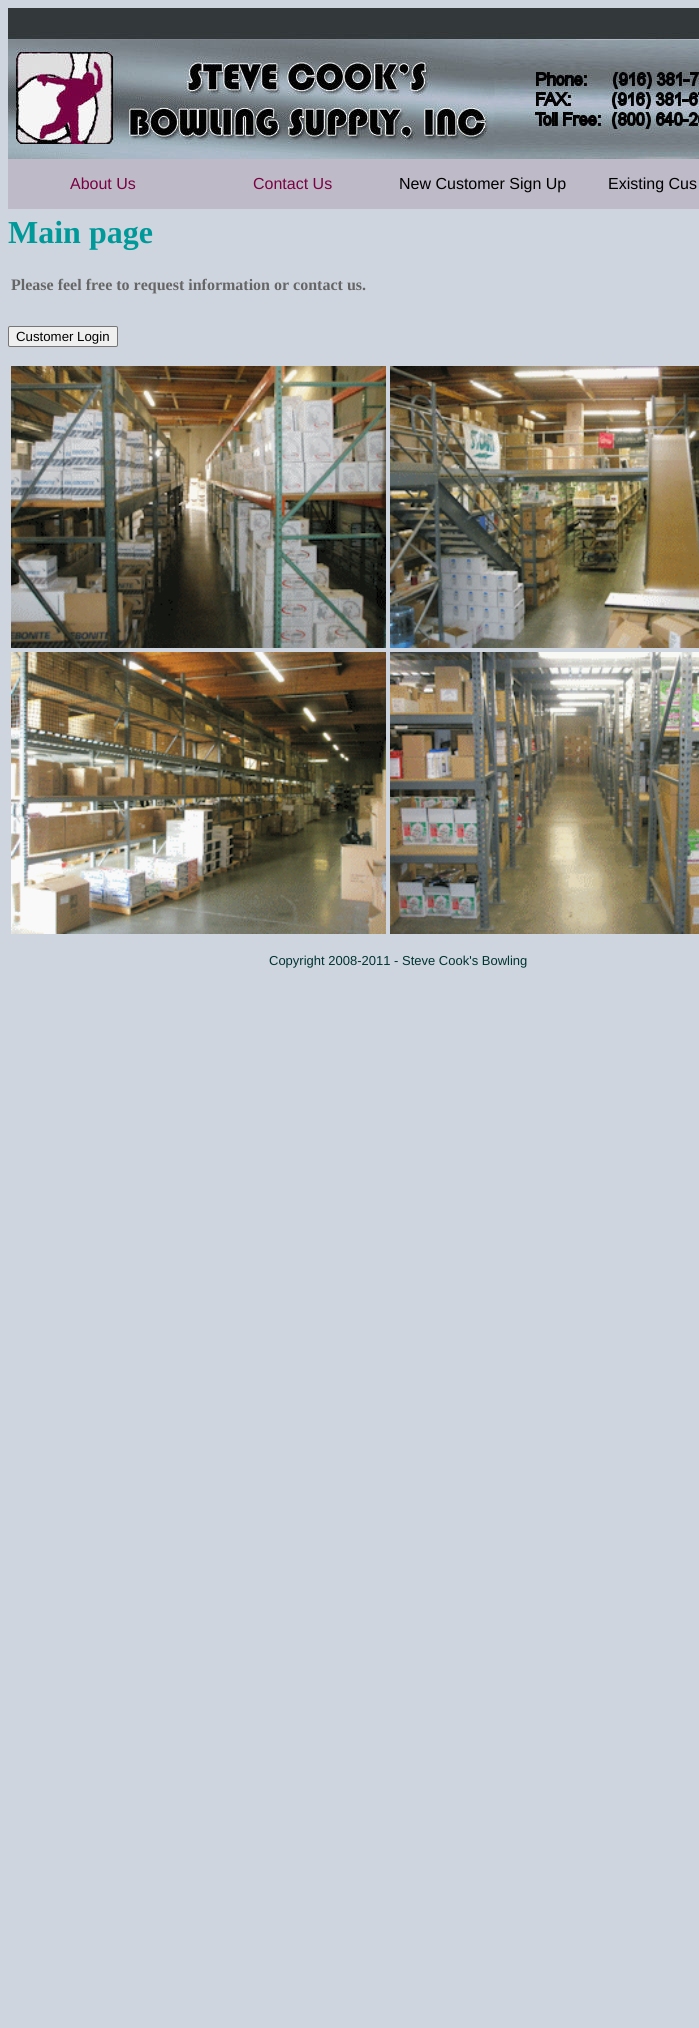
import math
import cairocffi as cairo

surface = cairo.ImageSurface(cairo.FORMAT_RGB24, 699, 2028)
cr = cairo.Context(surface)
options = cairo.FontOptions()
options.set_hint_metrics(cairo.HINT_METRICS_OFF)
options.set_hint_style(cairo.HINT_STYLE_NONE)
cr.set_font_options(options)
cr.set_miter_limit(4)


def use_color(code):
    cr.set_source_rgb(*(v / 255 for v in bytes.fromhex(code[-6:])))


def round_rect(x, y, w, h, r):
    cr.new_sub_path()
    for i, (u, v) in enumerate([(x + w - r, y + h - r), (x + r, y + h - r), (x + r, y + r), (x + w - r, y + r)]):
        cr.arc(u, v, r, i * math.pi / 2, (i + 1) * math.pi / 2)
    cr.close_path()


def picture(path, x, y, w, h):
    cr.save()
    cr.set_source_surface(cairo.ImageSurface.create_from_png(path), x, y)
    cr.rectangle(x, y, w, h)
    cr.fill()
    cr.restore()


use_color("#ced5df")
cr.paint()
picture("img1.png", 8, 8, 691, 151)
use_color("#bfbac7")
cr.rectangle(8, 159, 691, 50)
cr.fill()
cr.select_font_face("Liberation Sans")
cr.set_font_size(16)
use_color("#790244")
cr.move_to(70, 189)
cr.show_text("About Us")
cr.move_to(253, 189)
cr.show_text("Contact Us")
use_color("#000000")
cr.move_to(399, 189)
cr.show_text("New Customer Sign Up")
cr.move_to(608, 189)
cr.show_text("Existing Cus")
cr.select_font_face("Liberation Serif", cairo.FONT_SLANT_NORMAL, cairo.FONT_WEIGHT_BOLD)
cr.set_font_size(32)
use_color("#009999")
cr.move_to(8, 243)
cr.show_text("Main page")
cr.set_font_size(16)
use_color("#666666")
cr.move_to(11, 290)
cr.show_text("Please feel free to request information or contact us.")
use_color("#efefef")
round_rect(8.5, 326.5, 109, 20, 1.5)
cr.fill_preserve()
use_color("#767676")
cr.set_line_width(1)
cr.stroke()
cr.select_font_face("Liberation Sans")
cr.set_font_size(13.25)
use_color("#000000")
cr.move_to(16, 341)
cr.show_text("Customer Login")
picture("img2.png", 11, 366, 375, 282)
picture("img3.png", 390, 366, 309, 282)
picture("img4.png", 11, 652, 375, 282)
picture("img5.png", 390, 652, 309, 282)
cr.set_font_size(13)
use_color("#003333")
cr.move_to(269, 965)
cr.show_text("Copyright 2008-2011 - Steve Cook's Bowling")
surface.write_to_png("result.png")
